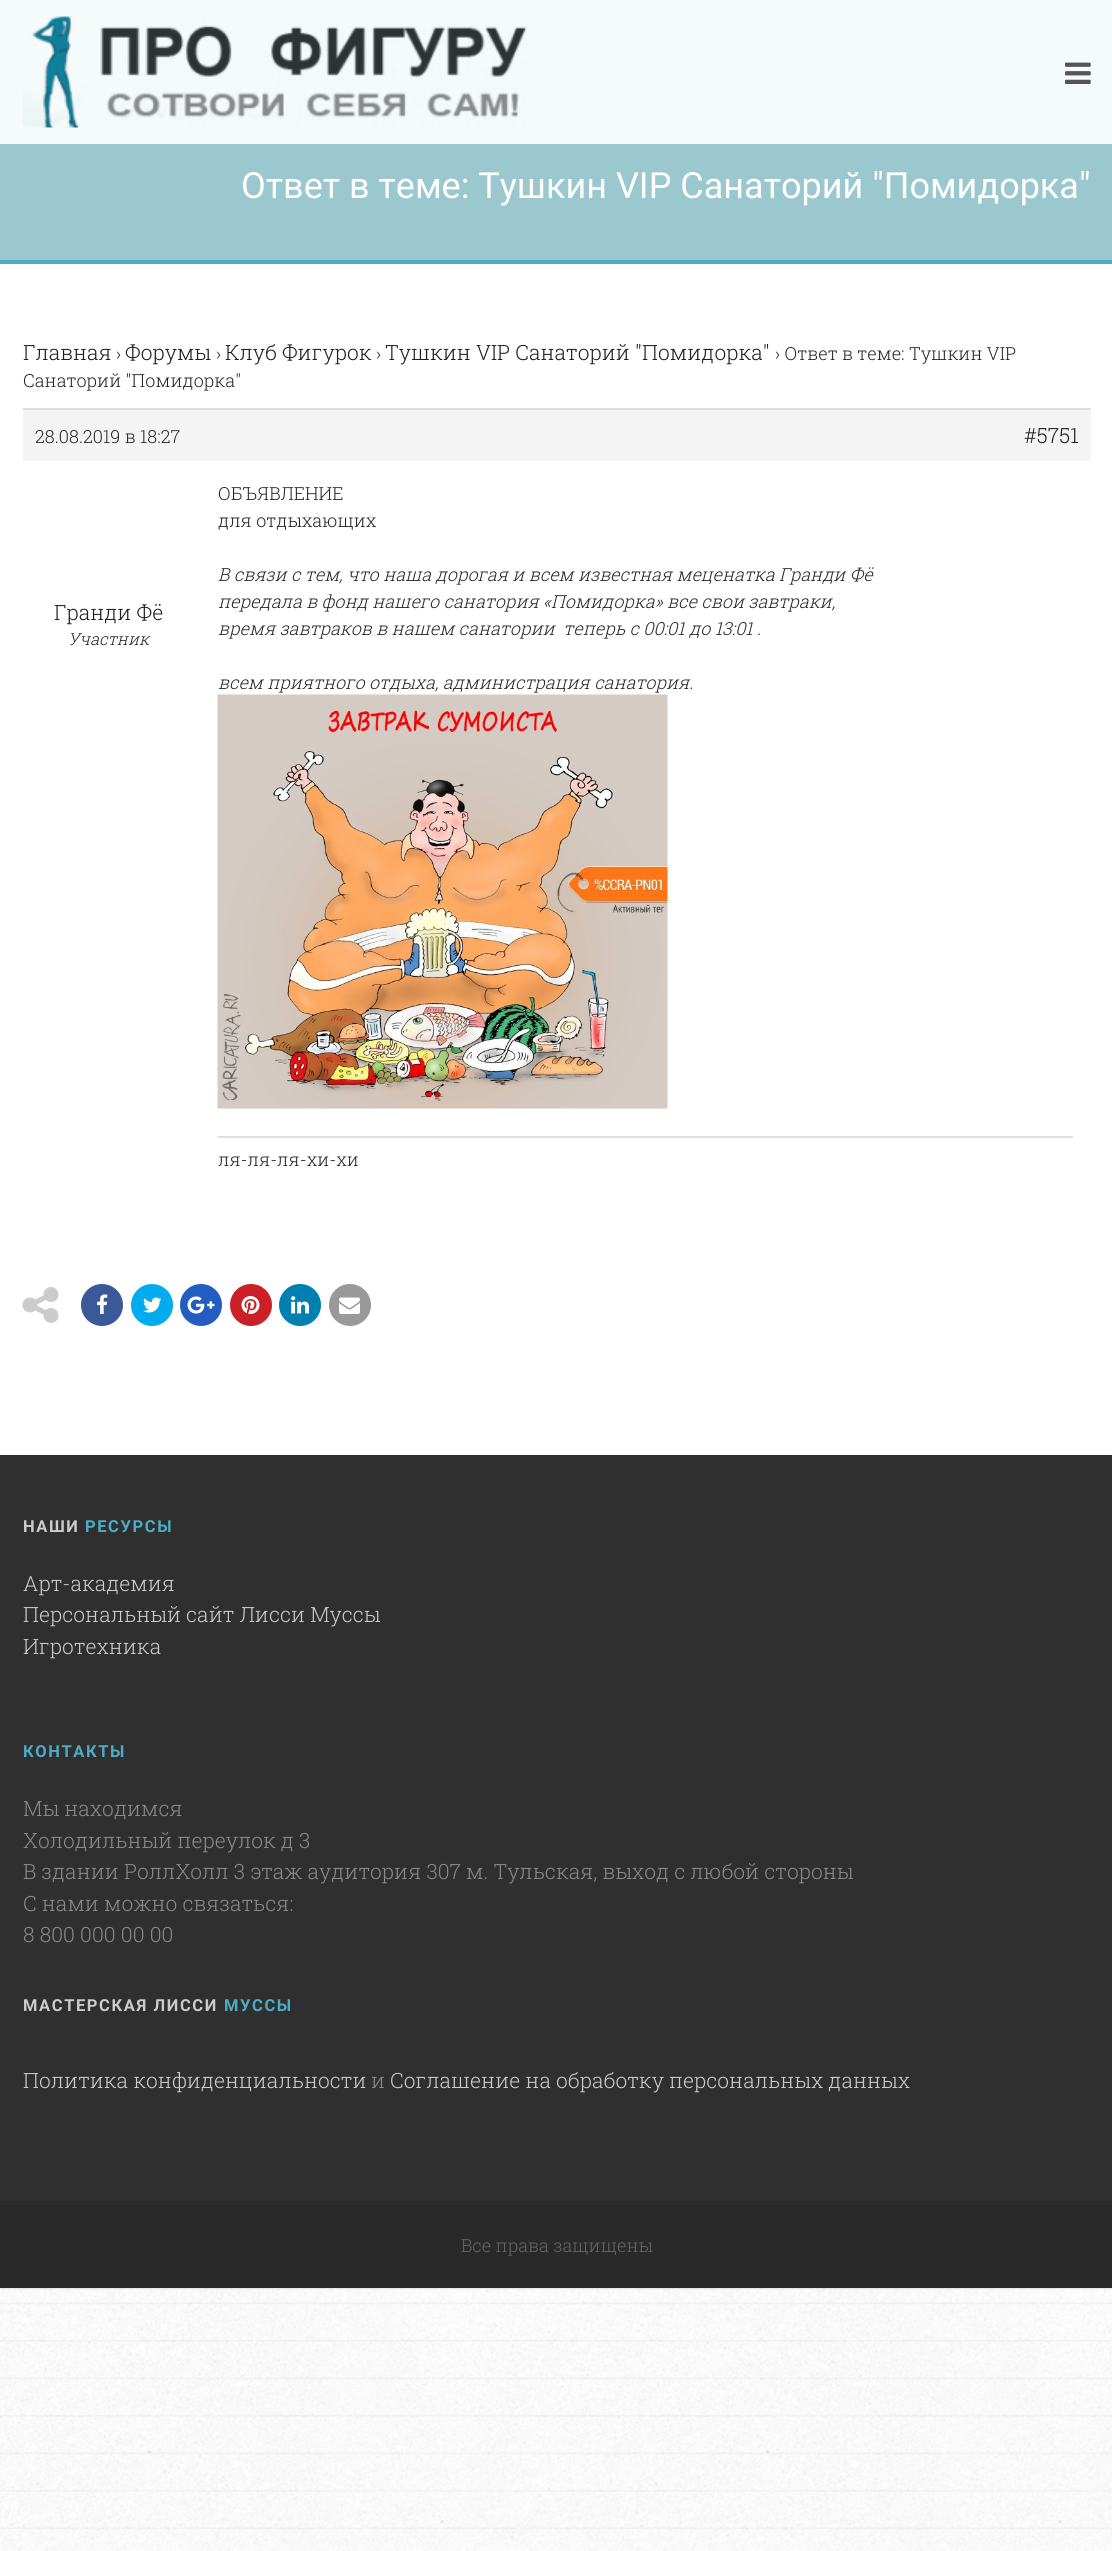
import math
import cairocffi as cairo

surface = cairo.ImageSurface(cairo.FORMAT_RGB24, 1112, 2551)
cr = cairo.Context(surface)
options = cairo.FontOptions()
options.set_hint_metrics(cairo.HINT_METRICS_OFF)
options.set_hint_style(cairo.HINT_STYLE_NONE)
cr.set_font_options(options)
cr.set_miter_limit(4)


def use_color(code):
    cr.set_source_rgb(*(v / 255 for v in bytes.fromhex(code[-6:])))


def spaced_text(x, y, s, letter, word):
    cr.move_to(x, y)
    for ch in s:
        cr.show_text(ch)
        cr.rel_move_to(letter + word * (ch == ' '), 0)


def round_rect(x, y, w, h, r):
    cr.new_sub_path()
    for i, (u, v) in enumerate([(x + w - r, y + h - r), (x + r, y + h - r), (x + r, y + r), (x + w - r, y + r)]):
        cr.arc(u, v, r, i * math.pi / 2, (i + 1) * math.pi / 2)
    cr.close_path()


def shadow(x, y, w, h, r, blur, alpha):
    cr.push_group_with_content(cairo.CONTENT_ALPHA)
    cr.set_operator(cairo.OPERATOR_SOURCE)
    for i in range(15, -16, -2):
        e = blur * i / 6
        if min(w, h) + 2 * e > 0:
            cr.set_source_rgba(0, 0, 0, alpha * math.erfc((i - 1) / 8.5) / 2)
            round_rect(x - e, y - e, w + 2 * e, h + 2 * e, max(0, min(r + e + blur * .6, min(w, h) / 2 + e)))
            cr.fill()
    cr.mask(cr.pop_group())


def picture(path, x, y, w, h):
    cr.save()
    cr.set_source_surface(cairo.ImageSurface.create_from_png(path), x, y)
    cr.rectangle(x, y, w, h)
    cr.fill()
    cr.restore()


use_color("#ffffff")
cr.paint()
picture("img1.png", 0, 2288, 1112, 263)
use_color("#000000")
shadow(0, 0, 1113, 2288, 0, 1.5, 0.2)
use_color("#f5fafa")
cr.rectangle(0, 0, 1112, 144)
cr.fill()
picture("img2.png", 22, 16, 505, 112)
picture("img3.png", 1065, 62, 26, 22)
use_color("#9bc8ce")
cr.rectangle(0, 144, 1112, 116)
cr.fill()
use_color("#4cadc5")
cr.rectangle(0, 260, 1112, 4)
cr.fill()
cr.select_font_face("Roboto")
cr.set_font_size(36)
use_color("#ffffff")
cr.move_to(241, 198)
cr.show_text("Ответ в теме: Тушкин VIP Санаторий \"Помидорка\"")
cr.rectangle(0, 264, 1112, 1191)
cr.fill()
cr.select_font_face("Roboto Slab Light")
cr.set_font_size(21)
use_color("#1e1e1e")
cr.move_to(23, 360)
cr.show_text("Главная")
cr.set_font_size(18)
use_color("#262626")
cr.move_to(116, 360)
cr.show_text("›")
cr.set_font_size(21)
use_color("#1e1e1e")
cr.move_to(125, 360)
cr.show_text("Форумы")
cr.set_font_size(18)
use_color("#262626")
cr.move_to(216, 360)
cr.show_text("›")
cr.set_font_size(21)
use_color("#1e1e1e")
cr.move_to(225, 360)
cr.show_text("Клуб Фигурок")
cr.set_font_size(18)
use_color("#262626")
cr.move_to(376, 360)
cr.show_text("›")
cr.set_font_size(21)
use_color("#1e1e1e")
cr.move_to(385, 360)
cr.show_text("Тушкин VIP Санаторий \"Помидорка\"")
cr.set_font_size(18)
use_color("#262626")
cr.move_to(775, 360)
cr.show_text("› Ответ в теме: Тушкин VIP")
cr.move_to(23, 387)
cr.show_text("Санаторий \"Помидорка\"")
use_color("#f4f4f4")
cr.rectangle(23, 410, 1068, 51)
cr.fill()
use_color("#dddddd")
cr.rectangle(23, 408, 1068, 2)
cr.fill()
use_color("#262626")
cr.move_to(35, 443)
cr.show_text("28.08.2019 в 18:27")
cr.set_font_size(21)
use_color("#1e1e1e")
cr.move_to(1024, 443)
cr.show_text("#5751")
cr.move_to(54, 620)
cr.show_text("Гранди Фё")
cr.select_font_face("Roboto Slab Light", cairo.FONT_SLANT_ITALIC)
cr.set_font_size(16.5)
use_color("#262626")
cr.move_to(68, 645)
cr.show_text("Участник")
cr.select_font_face("Roboto Slab Light")
cr.set_font_size(18)
cr.move_to(218, 500)
cr.show_text("ОБЪЯВЛЕНИЕ")
cr.move_to(218, 527)
cr.show_text("для отдыхающих")
cr.select_font_face("Roboto Slab Light", cairo.FONT_SLANT_ITALIC)
cr.move_to(218, 581)
cr.show_text("В связи с тем, что наша дорогая и всем известная меценатка Гранди Фё")
cr.move_to(218, 608)
cr.show_text("передала в фонд нашего санатория «Помидорка» все свои завтраки,")
cr.move_to(218, 635)
cr.show_text("время завтраков в нашем санатории  теперь с 00:01 до 13:01 .")
cr.move_to(218, 689)
cr.show_text("всем приятного отдыха, администрация санатория.")
picture("img4.png", 217, 694, 451, 415)
use_color("#dddddd")
cr.rectangle(218, 1136, 855, 2)
cr.fill()
cr.select_font_face("Roboto Slab Light")
use_color("#262626")
cr.move_to(218, 1166)
cr.show_text("ля-ля-ля-хи-хи")
picture("img5.png", 22, 1287, 37, 36)
use_color("#3b5998")
cr.arc(102, 1305, 21, 0, 2 * math.pi)
cr.fill()
picture("img6.png", 97, 1294, 11, 20)
use_color("#00aced")
cr.arc(152, 1305, 21, 0, 2 * math.pi)
cr.fill()
picture("img7.png", 143, 1297, 19, 16)
use_color("#245dc1")
cr.arc(201, 1305, 21, 0, 2 * math.pi)
cr.fill()
picture("img8.png", 187, 1296, 28, 18)
use_color("#cb2027")
cr.arc(251, 1305, 21, 0, 2 * math.pi)
cr.fill()
picture("img9.png", 241, 1296, 19, 18)
use_color("#007fb1")
cr.arc(300, 1305, 21, 0, 2 * math.pi)
cr.fill()
picture("img10.png", 291, 1296, 18, 18)
use_color("#999999")
cr.arc(350, 1305, 21, 0, 2 * math.pi)
cr.fill()
picture("img11.png", 339, 1297, 21, 17)
use_color("#2f2f2f")
cr.rectangle(0, 1455, 1112, 746)
cr.fill()
cr.select_font_face("Roboto", cairo.FONT_SLANT_NORMAL, cairo.FONT_WEIGHT_BOLD)
cr.set_font_size(16.5)
use_color("#cccccc")
spaced_text(23, 1532, "НАШИ", 1.6, 0)
use_color("#4cadc5")
spaced_text(85, 1532, "РЕСУРСЫ", 1.6, 0)
cr.select_font_face("Roboto Slab Light")
cr.set_font_size(21)
use_color("#cccccc")
cr.move_to(23, 1591)
cr.show_text("Арт-академия")
cr.move_to(23, 1622)
cr.show_text("Персональный сайт Лисси Муссы")
cr.move_to(23, 1654)
cr.show_text("Игротехника")
cr.select_font_face("Roboto", cairo.FONT_SLANT_NORMAL, cairo.FONT_WEIGHT_BOLD)
cr.set_font_size(16.5)
use_color("#4cadc5")
spaced_text(23, 1757, "КОНТАКТЫ", 1.6, 0)
cr.select_font_face("Roboto Slab Light")
cr.set_font_size(21)
use_color("#8a8a8a")
cr.move_to(23, 1816)
cr.show_text("Мы находимся")
cr.move_to(23, 1848)
cr.show_text("Холодильный переулок д 3")
cr.move_to(23, 1879)
cr.show_text("В здании РоллХолл 3 этаж аудитория 307 м. Тульская, выход с любой стороны")
cr.move_to(23, 1911)
cr.show_text("С нами можно связаться:")
cr.move_to(23, 1942)
cr.show_text("8 800 000 00 00")
cr.select_font_face("Roboto", cairo.FONT_SLANT_NORMAL, cairo.FONT_WEIGHT_BOLD)
cr.set_font_size(16.5)
use_color("#cccccc")
spaced_text(23, 2011, "МАСТЕРСКАЯ ЛИССИ", 1.6, 0)
use_color("#4cadc5")
spaced_text(224, 2011, "МУССЫ", 1.6, 0)
cr.select_font_face("Roboto Slab Light")
cr.set_font_size(21)
use_color("#cccccc")
cr.move_to(23, 2088)
cr.show_text("Политика конфиденциальности")
use_color("#8a8a8a")
cr.move_to(371, 2088)
cr.show_text("и")
use_color("#cccccc")
cr.move_to(390, 2088)
cr.show_text("Соглашение на обработку персональных данных")
use_color("#292929")
cr.rectangle(0, 2201, 1112, 87)
cr.fill()
cr.set_font_size(18)
use_color("#666666")
cr.move_to(461, 2252)
cr.show_text("Все права защищены")
surface.write_to_png("result.png")
